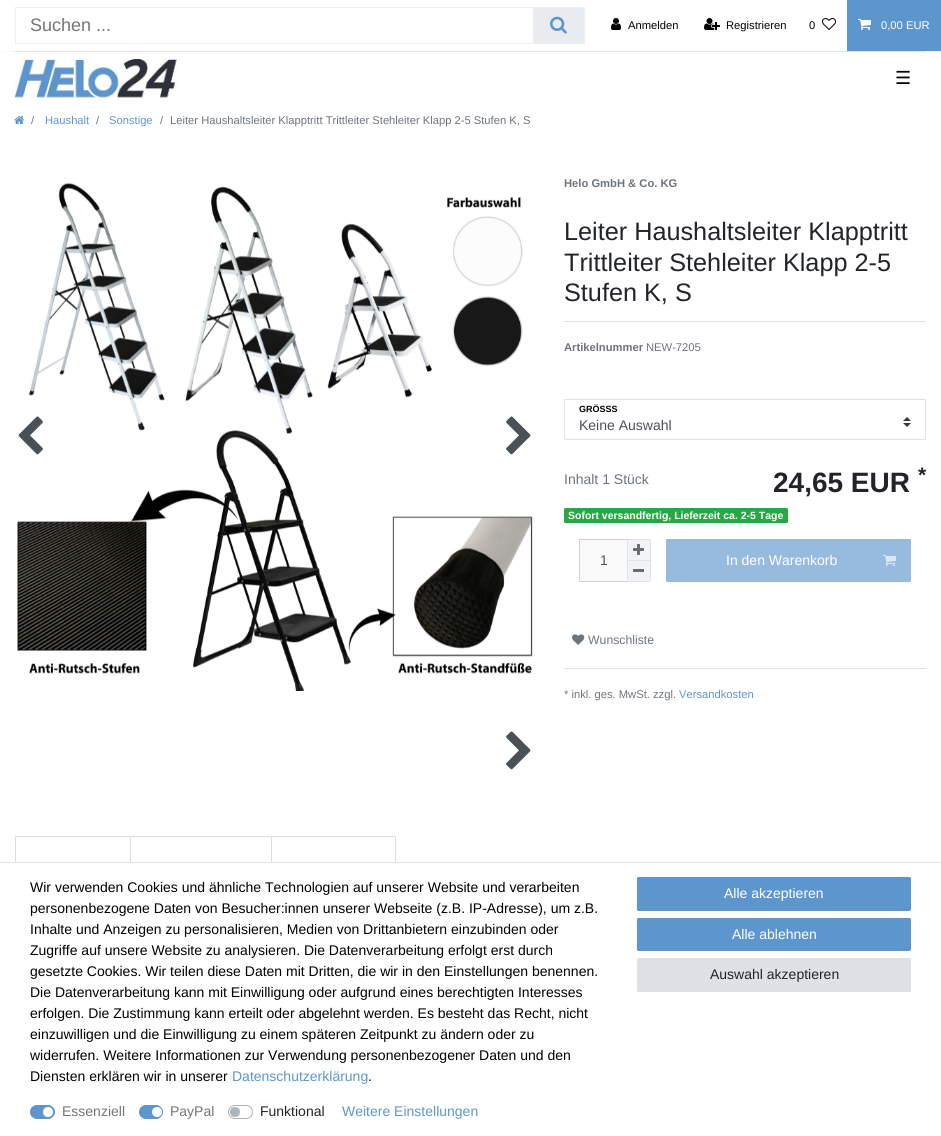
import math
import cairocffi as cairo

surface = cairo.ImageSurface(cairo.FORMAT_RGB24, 941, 1136)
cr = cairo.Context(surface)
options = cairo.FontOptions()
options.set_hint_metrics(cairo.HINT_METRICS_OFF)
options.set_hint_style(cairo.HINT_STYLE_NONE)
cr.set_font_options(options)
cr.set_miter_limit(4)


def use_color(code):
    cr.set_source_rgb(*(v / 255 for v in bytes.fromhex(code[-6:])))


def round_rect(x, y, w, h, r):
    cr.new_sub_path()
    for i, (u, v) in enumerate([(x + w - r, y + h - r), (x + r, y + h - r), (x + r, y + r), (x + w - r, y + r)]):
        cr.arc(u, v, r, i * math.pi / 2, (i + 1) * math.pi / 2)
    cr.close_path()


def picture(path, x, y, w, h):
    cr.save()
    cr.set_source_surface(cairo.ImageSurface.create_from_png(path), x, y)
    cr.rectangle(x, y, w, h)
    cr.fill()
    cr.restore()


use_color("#f8f9fa")
cr.paint()
use_color("#ffffff")
cr.rectangle(0, 52, 941, 810)
cr.fill()
cr.rectangle(0, 0, 847, 51)
cr.fill()
cr.rectangle(15.5, 7.5, 569, 36)
use_color("#eeeeee")
cr.set_line_width(1)
cr.stroke()
cr.select_font_face("Liberation Sans")
cr.set_font_size(18)
use_color("#757575")
cr.move_to(30, 31)
cr.show_text("Suchen ...")
use_color("#e9ecef")
cr.rectangle(533, 8, 51, 35)
cr.fill()
picture("img1.png", 550, 16, 17, 18)
picture("img2.png", 611, 18, 10, 12)
cr.set_font_size(11.2)
use_color("#000000")
cr.move_to(628, 29)
cr.show_text("Anmelden")
picture("img3.png", 704, 18, 16, 12)
cr.move_to(726, 29)
cr.show_text("Registrieren")
cr.move_to(809, 29)
cr.show_text("0")
picture("img4.png", 822, 18, 14, 12)
use_color("#5d96cd")
cr.rectangle(847, 0, 94, 51)
cr.fill()
picture("img5.png", 858, 19, 13, 11)
use_color("#ffffff")
cr.move_to(881, 29)
cr.show_text("0,00 EUR")
use_color("#dee2e6")
cr.rectangle(15, 51, 911, 1)
cr.fill()
picture("img6.png", 15, 59, 162, 39)
cr.select_font_face("DejaVu Sans")
cr.set_font_size(18)
use_color("#000000")
cr.move_to(895, 84)
cr.show_text("☰")
picture("img7.png", 14, 116, 11, 8)
cr.select_font_face("Liberation Sans")
cr.set_font_size(11.2)
use_color("#6c757d")
cr.move_to(31, 124)
cr.show_text("/")
use_color("#5d96cd")
cr.move_to(45, 124)
cr.show_text("Haushalt")
use_color("#6c757d")
cr.move_to(96, 124)
cr.show_text("/")
use_color("#5d96cd")
cr.move_to(109, 124)
cr.show_text("Sonstige")
use_color("#6c757d")
cr.move_to(160, 124)
cr.show_text("/")
cr.move_to(170, 124)
cr.show_text("Leiter Haushaltsleiter Klapptritt Trittleiter Stehleiter Klapp 2-5 Stufen K, S")
picture("img8.png", 17, 183, 516, 508)
picture("img9.png", 18, 416, 25, 39)
picture("img10.png", 506, 416, 25, 39)
picture("img10.png", 506, 731, 25, 39)
cr.select_font_face("Liberation Sans", cairo.FONT_SLANT_NORMAL, cairo.FONT_WEIGHT_BOLD)
cr.move_to(564, 187)
cr.show_text("Helo GmbH & Co. KG")
cr.select_font_face("Liberation Sans")
cr.set_font_size(25.25)
use_color("#212529")
cr.move_to(564, 240)
cr.show_text("Leiter Haushaltsleiter Klapptritt")
cr.move_to(564, 271)
cr.show_text("Trittleiter Stehleiter Klapp 2-5")
cr.move_to(564, 301)
cr.show_text("Stufen K, S")
use_color("#dee2e6")
cr.rectangle(564, 321, 362, 1)
cr.fill()
cr.select_font_face("Liberation Sans", cairo.FONT_SLANT_NORMAL, cairo.FONT_WEIGHT_BOLD)
cr.set_font_size(11.2)
use_color("#6c757d")
cr.move_to(564, 351)
cr.show_text("Artikelnummer")
cr.select_font_face("Liberation Sans")
cr.move_to(646, 351)
cr.show_text("NEW-7205")
round_rect(564.5, 399.5, 361, 40, 1)
use_color("#dee2e6")
cr.stroke()
cr.select_font_face("Liberation Sans", cairo.FONT_SLANT_NORMAL, cairo.FONT_WEIGHT_BOLD)
cr.set_font_size(9)
use_color("#000000")
cr.move_to(579, 412)
cr.show_text("GRÖSSS")
picture("img11.png", 903, 417, 8, 10)
cr.select_font_face("Liberation Sans")
cr.set_font_size(14)
use_color("#495057")
cr.move_to(579, 430)
cr.show_text("Keine Auswahl")
use_color("#6c757d")
cr.move_to(564, 484)
cr.show_text("Inhalt 1 Stück")
cr.select_font_face("Liberation Sans", cairo.FONT_SLANT_NORMAL, cairo.FONT_WEIGHT_BOLD)
cr.set_font_size(28)
use_color("#212529")
cr.move_to(773, 492)
cr.show_text("24,65 EUR")
cr.set_font_size(21)
cr.move_to(918, 482)
cr.show_text("*")
use_color("#28a745")
round_rect(564, 508, 224, 15, 1.5)
cr.fill()
cr.set_font_size(10.5)
use_color("#ffffff")
cr.move_to(568, 519)
cr.show_text("Sofort versandfertig, Lieferzeit ca. 2-5 Tage")
use_color("#fafafa")
cr.rectangle(580, 540, 47, 41)
cr.fill()
use_color("#ced4da")
cr.rectangle(579, 539, 48, 1)
cr.fill()
cr.rectangle(579, 581, 48, 1)
cr.fill()
cr.rectangle(579, 539, 1, 43)
cr.fill()
cr.select_font_face("Liberation Sans")
cr.set_font_size(14)
use_color("#545454")
cr.move_to(600, 565)
cr.show_text("1")
use_color("#f1f3f5")
cr.new_path()
cr.move_to(627.5, 539.5)
cr.line_to(649.5, 539.5)
cr.curve_to(650, 539.5, 650.5, 540, 650.5, 540.5)
cr.line_to(650.5, 560.5)
cr.line_to(627.5, 560.5)
cr.close_path()
cr.fill_preserve()
use_color("#dfe3e7")
cr.stroke()
picture("img12.png", 633, 544, 11, 11)
use_color("#f1f3f5")
cr.new_path()
cr.move_to(627, 561)
cr.line_to(651, 561)
cr.line_to(651, 580.5)
cr.curve_to(651, 581.5, 650.5, 582, 649.5, 582)
cr.line_to(627, 582)
cr.close_path()
cr.fill()
use_color("#dfe3e7")
cr.rectangle(650, 561, 1, 20)
cr.fill()
cr.rectangle(627, 581, 23, 1)
cr.fill()
cr.rectangle(627, 561, 1, 21)
cr.fill()
use_color("#6a6d70")
cr.rectangle(633, 569, 11, 3)
cr.fill()
use_color("#96bbdf")
round_rect(666.5, 539.5, 244, 42, 1)
cr.fill_preserve()
cr.stroke()
use_color("#ffffff")
cr.move_to(726, 565)
cr.show_text("In den Warenkorb")
picture("img13.png", 883, 555, 13, 11)
picture("img14.png", 572, 634, 13, 11)
cr.set_font_size(12.25)
use_color("#6c757d")
cr.move_to(588, 644)
cr.show_text("Wunschliste")
use_color("#dee2e6")
cr.rectangle(564, 668, 362, 1)
cr.fill()
cr.set_font_size(11.2)
use_color("#6c757d")
cr.move_to(564, 698)
cr.show_text("* inkl. ges. MwSt. zzgl.")
use_color("#5d96cd")
cr.move_to(679, 698)
cr.show_text("Versandkosten")
use_color("#dddddd")
cr.rectangle(16, 836, 114, 1)
cr.fill()
cr.new_path()
cr.move_to(16, 837)
cr.line_to(16, 836)
cr.line_to(15, 837)
cr.line_to(15, 895)
cr.line_to(16, 894)
cr.close_path()
cr.fill()
cr.new_path()
cr.move_to(131.5, 836.5)
cr.line_to(270.5, 836.5)
cr.curve_to(271, 836.5, 271.5, 837, 271.5, 837.5)
cr.line_to(271.5, 894.5)
cr.line_to(130.5, 894.5)
cr.line_to(130.5, 837.5)
cr.curve_to(130.5, 837, 131, 836.5, 131.5, 836.5)
cr.close_path()
cr.stroke()
cr.new_path()
cr.move_to(272.5, 836.5)
cr.line_to(394.5, 836.5)
cr.curve_to(395, 836.5, 395.5, 837, 395.5, 837.5)
cr.line_to(395.5, 894.5)
cr.line_to(271.5, 894.5)
cr.line_to(271.5, 837.5)
cr.curve_to(271.5, 837, 272, 836.5, 272.5, 836.5)
cr.close_path()
cr.stroke()
use_color("#ffffff")
cr.rectangle(0, 863, 941, 273)
cr.fill()
use_color("#dee2e6")
cr.rectangle(0, 862, 941, 1)
cr.fill()
cr.set_font_size(14)
use_color("#000000")
cr.move_to(30, 892)
cr.show_text("Wir verwenden Cookies und ähnliche Technologien auf unserer Website und verarbeiten")
cr.move_to(30, 913)
cr.show_text("personenbezogene Daten von Besucher:innen unserer Webseite (z.B. IP-Adresse), um z.B.")
cr.move_to(30, 934)
cr.show_text("Inhalte und Anzeigen zu personalisieren, Medien von Drittanbietern einzubinden oder")
cr.move_to(30, 955)
cr.show_text("Zugriffe auf unsere Website zu analysieren. Die Datenverarbeitung erfolgt erst durch")
cr.move_to(30, 976)
cr.show_text("gesetzte Cookies. Wir teilen diese Daten mit Dritten, die wir in den Einstellungen benennen.")
cr.move_to(30, 997)
cr.show_text("Die Datenverarbeitung kann mit Einwilligung oder aufgrund eines berechtigten Interesses")
cr.move_to(30, 1018)
cr.show_text("erfolgen. Die Zustimmung kann erteilt oder abgelehnt werden. Es besteht das Recht, nicht")
cr.move_to(30, 1039)
cr.show_text("einzuwilligen und die Einwilligung zu einem späteren Zeitpunkt zu ändern oder zu")
cr.move_to(30, 1060)
cr.show_text("widerrufen. Weitere Informationen zur Verwendung personenbezogener Daten und den")
cr.move_to(30, 1081)
cr.show_text("Diensten erklären wir in unserer")
use_color("#5d96cd")
cr.move_to(232, 1081)
cr.show_text("Datenschutzerklärung")
use_color("#000000")
cr.move_to(368, 1081)
cr.show_text(".")
use_color("#5d96cd")
round_rect(30.5, 1105.5, 24, 13, 6.5)
cr.fill_preserve()
cr.stroke()
use_color("#757575")
cr.move_to(62, 1116)
cr.show_text("Essenziell")
use_color("#ffffff")
cr.new_path()
cr.arc(48, 1112, 5, 0, 2 * math.pi)
cr.fill()
use_color("#5d96cd")
round_rect(139.5, 1105.5, 23, 13, 6.5)
cr.fill_preserve()
cr.stroke()
use_color("#757575")
cr.move_to(170, 1116)
cr.show_text("PayPal")
use_color("#ffffff")
cr.new_path()
cr.arc(157, 1112, 5, 0, 2 * math.pi)
cr.fill()
round_rect(228.5, 1105.5, 24, 13, 6.5)
use_color("#adb5bd")
cr.stroke()
use_color("#212529")
cr.move_to(260, 1116)
cr.show_text("Funktional")
use_color("#adb5bd")
cr.new_path()
cr.arc(235, 1112, 5, 0, 2 * math.pi)
cr.fill()
use_color("#5d96cd")
cr.move_to(342, 1116)
cr.show_text("Weitere Einstellungen")
round_rect(637.5, 877.5, 273, 33, 1)
cr.fill_preserve()
cr.stroke()
use_color("#ffffff")
cr.move_to(724, 898)
cr.show_text("Alle akzeptieren")
use_color("#5d96cd")
round_rect(637.5, 918.5, 273, 32, 1)
cr.fill_preserve()
cr.stroke()
use_color("#ffffff")
cr.move_to(732, 939)
cr.show_text("Alle ablehnen")
use_color("#dee2e6")
round_rect(637.5, 958.5, 273, 33, 1)
cr.fill_preserve()
cr.stroke()
use_color("#212529")
cr.move_to(710, 979)
cr.show_text("Auswahl akzeptieren")
surface.write_to_png("result.png")
